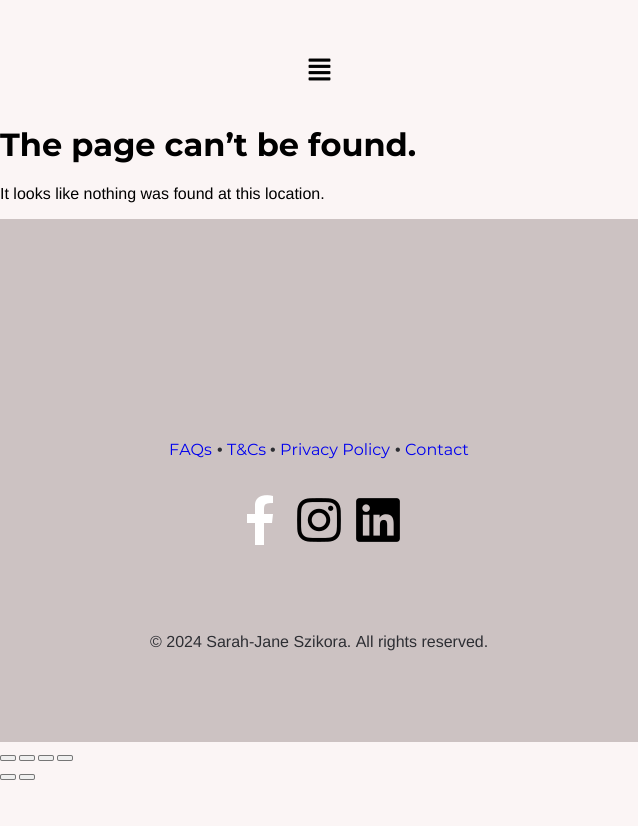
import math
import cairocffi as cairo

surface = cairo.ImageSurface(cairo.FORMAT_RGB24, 638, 826)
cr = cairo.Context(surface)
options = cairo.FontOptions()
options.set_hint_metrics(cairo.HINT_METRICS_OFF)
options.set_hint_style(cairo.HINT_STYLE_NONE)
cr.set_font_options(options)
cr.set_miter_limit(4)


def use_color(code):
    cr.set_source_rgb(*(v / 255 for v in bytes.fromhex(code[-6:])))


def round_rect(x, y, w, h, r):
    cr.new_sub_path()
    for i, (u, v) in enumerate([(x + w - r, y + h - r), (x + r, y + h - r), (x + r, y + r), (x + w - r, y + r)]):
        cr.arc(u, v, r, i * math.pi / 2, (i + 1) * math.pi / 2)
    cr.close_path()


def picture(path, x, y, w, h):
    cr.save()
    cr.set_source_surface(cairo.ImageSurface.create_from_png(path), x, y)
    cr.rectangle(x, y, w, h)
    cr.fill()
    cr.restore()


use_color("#fbf5f5")
cr.paint()
picture("img1.png", 308, 58, 23, 23)
cr.select_font_face("Montserrat", cairo.FONT_SLANT_NORMAL, cairo.FONT_WEIGHT_BOLD)
cr.set_font_size(32)
use_color("#000000")
cr.move_to(0, 156)
cr.show_text("The page can’t be found.")
cr.select_font_face("Liberation Sans")
cr.set_font_size(16)
cr.move_to(0, 199)
cr.show_text("It looks like nothing was found at this location.")
use_color("#ccc2c2")
cr.rectangle(0, 219, 638, 523)
cr.fill()
cr.select_font_face("Montserrat")
use_color("#0000ee")
cr.move_to(169, 455)
cr.show_text("FAQs")
cr.select_font_face("Liberation Sans")
use_color("#2d2e33")
cr.move_to(217, 455)
cr.show_text("•")
cr.select_font_face("Montserrat")
use_color("#0000ee")
cr.move_to(227, 455)
cr.show_text("T&Cs")
cr.select_font_face("Liberation Sans")
use_color("#2d2e33")
cr.move_to(270, 455)
cr.show_text("•")
cr.select_font_face("Montserrat")
use_color("#0000ee")
cr.move_to(280, 455)
cr.show_text("Privacy Policy")
cr.select_font_face("Liberation Sans")
use_color("#2d2e33")
cr.move_to(395, 455)
cr.show_text("•")
cr.select_font_face("Montserrat")
use_color("#0000ee")
cr.move_to(405, 455)
cr.show_text("Contact")
use_color("#ffffff")
cr.new_path()
cr.move_to(272, 523)
cr.line_to(273, 514)
cr.line_to(264, 514)
cr.curve_to(264, 505, 263, 503, 273, 503)
cr.line_to(273, 496)
cr.curve_to(266, 494, 256, 495, 255, 504)
cr.line_to(255, 514)
cr.line_to(247, 514)
cr.line_to(247, 523)
cr.line_to(255, 523)
cr.line_to(255, 545)
cr.line_to(264, 545)
cr.line_to(264, 523)
cr.close_path()
cr.fill()
picture("img2.png", 297, 498, 44, 44)
picture("img3.png", 356, 498, 44, 44)
cr.select_font_face("Liberation Sans")
use_color("#2d2e33")
cr.move_to(150, 647)
cr.show_text("© 2024 Sarah-Jane Szikora. All rights reserved.")
use_color("#efefef")
round_rect(0.5, 755.5, 15, 5, 1.5)
cr.fill_preserve()
use_color("#767676")
cr.set_line_width(1)
cr.stroke()
use_color("#efefef")
round_rect(19.5, 755.5, 15, 5, 1.5)
cr.fill_preserve()
use_color("#767676")
cr.stroke()
use_color("#efefef")
round_rect(38.5, 755.5, 15, 5, 1.5)
cr.fill_preserve()
use_color("#767676")
cr.stroke()
use_color("#efefef")
round_rect(57.5, 755.5, 15, 5, 1.5)
cr.fill_preserve()
use_color("#767676")
cr.stroke()
use_color("#efefef")
round_rect(0.5, 774.5, 15, 5, 1.5)
cr.fill_preserve()
use_color("#767676")
cr.stroke()
use_color("#efefef")
round_rect(19.5, 774.5, 15, 5, 1.5)
cr.fill_preserve()
use_color("#767676")
cr.stroke()
surface.write_to_png("result.png")
